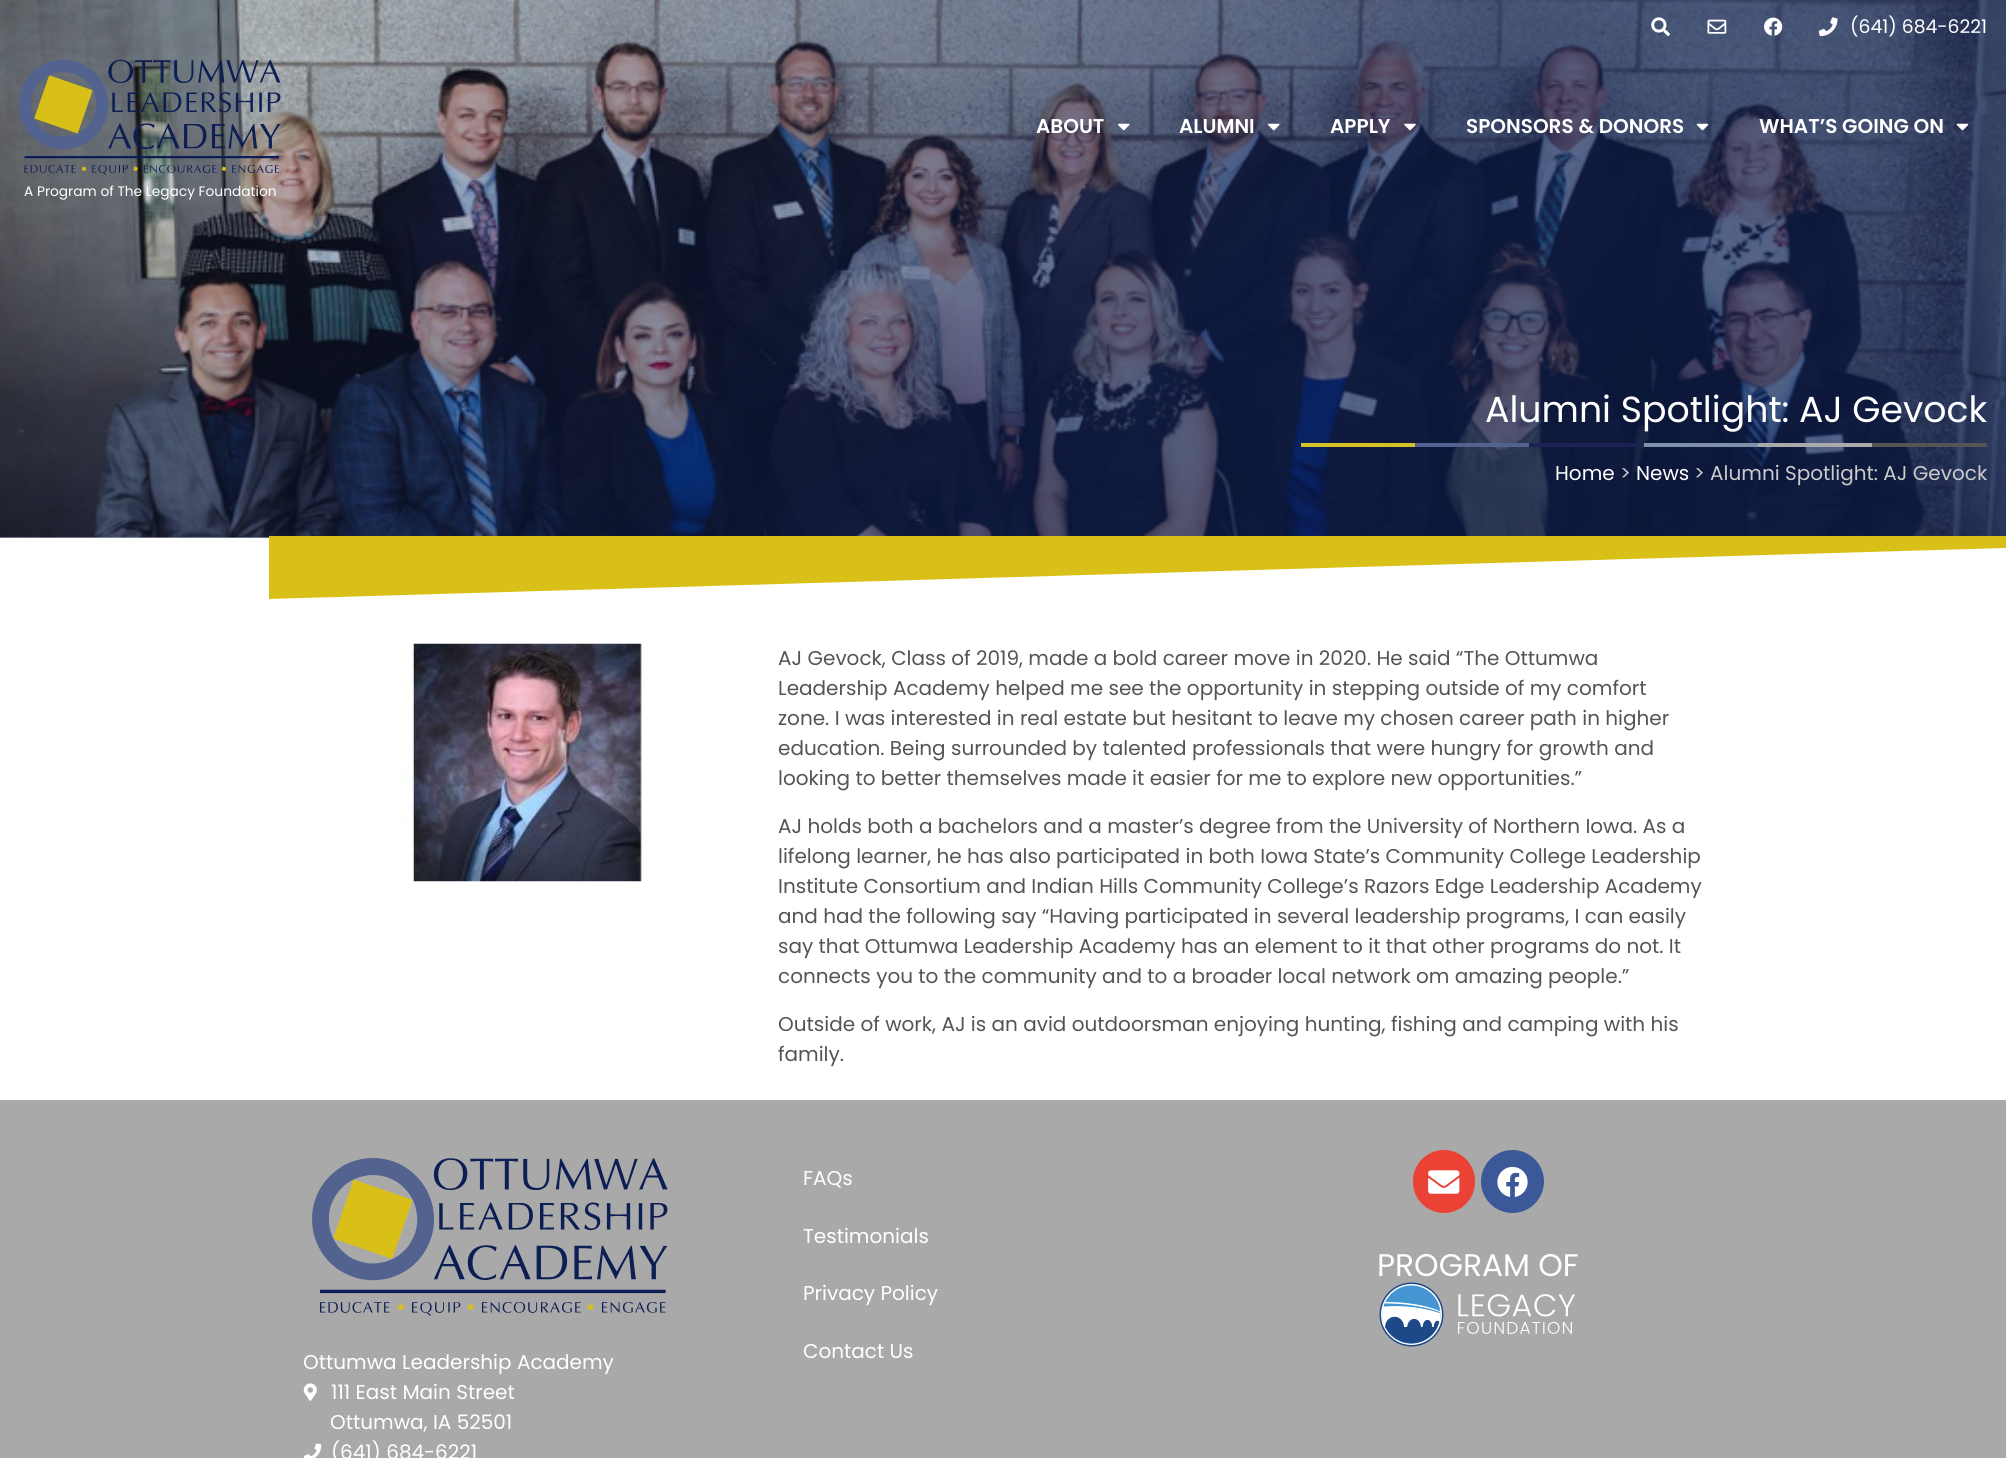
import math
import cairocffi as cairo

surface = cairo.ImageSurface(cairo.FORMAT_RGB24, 2006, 1458)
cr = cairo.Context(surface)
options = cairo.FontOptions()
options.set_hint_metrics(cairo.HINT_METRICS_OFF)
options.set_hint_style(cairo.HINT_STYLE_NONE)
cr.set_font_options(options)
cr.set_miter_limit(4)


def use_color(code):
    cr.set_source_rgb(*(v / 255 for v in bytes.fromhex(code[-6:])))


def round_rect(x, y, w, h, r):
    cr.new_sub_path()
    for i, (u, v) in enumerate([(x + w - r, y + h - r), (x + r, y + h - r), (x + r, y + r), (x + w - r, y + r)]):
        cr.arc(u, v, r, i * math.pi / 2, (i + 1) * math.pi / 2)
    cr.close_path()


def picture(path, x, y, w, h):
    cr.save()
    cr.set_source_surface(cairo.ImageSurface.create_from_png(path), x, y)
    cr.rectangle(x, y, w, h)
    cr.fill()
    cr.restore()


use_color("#ffffff")
cr.paint()
picture("img1.png", 0, 0, 2006, 538)
gradient = cairo.LinearGradient(367, -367, 1639, 905)
gradient.add_color_stop_rgba(0, 0.051, 0.118, 0.329, 0)
gradient.add_color_stop_rgba(0.6, 0.051, 0.118, 0.329, 0.65)
cr.set_source(gradient)
cr.rectangle(0, 0, 2006, 538)
cr.fill()
picture("img2.png", 1651, 17, 19, 19)
picture("img3.png", 1707, 19, 20, 15)
picture("img4.png", 1764, 17, 19, 19)
picture("img5.png", 1818, 17, 20, 20)
cr.select_font_face("Poppins")
cr.set_font_size(18.75)
use_color("#ffffff")
cr.move_to(1850, 33)
cr.show_text("(641) 684-6221")
cr.select_font_face("Poppins SemiBold")
cr.set_font_size(20)
cr.move_to(1036, 133)
cr.show_text("ABOUT")
picture("img6.png", 1118, 123, 12, 8)
cr.move_to(1179, 133)
cr.show_text("ALUMNI")
picture("img7.png", 1268, 123, 12, 8)
cr.move_to(1330, 133)
cr.show_text("APPLY")
picture("img8.png", 1404, 123, 12, 8)
cr.move_to(1466, 133)
cr.show_text("SPONSORS & DONORS")
picture("img9.png", 1696, 123, 13, 8)
cr.move_to(1759, 133)
cr.show_text("WHAT’S GOING ON")
picture("img10.png", 1956, 123, 13, 8)
picture("img11.png", 18, 59, 263, 116)
cr.select_font_face("Poppins")
cr.set_font_size(13.75)
cr.move_to(24, 196)
cr.show_text("A Program of The Legacy Foundation")
cr.set_font_size(36.25)
cr.move_to(1485, 422)
cr.show_text("Alumni Spotlight: AJ Gevock")
use_color("#545555")
cr.rectangle(1872, 443, 115, 4)
cr.fill()
use_color("#aaaaaa")
cr.rectangle(1758, 443, 114, 4)
cr.fill()
use_color("#7d92aa")
cr.rectangle(1644, 443, 114, 4)
cr.fill()
use_color("#1c2252")
cr.rectangle(1529, 443, 115, 4)
cr.fill()
use_color("#51638e")
cr.rectangle(1415, 443, 114, 4)
cr.fill()
use_color("#d8c027")
cr.rectangle(1301, 443, 114, 4)
cr.fill()
cr.set_font_size(20)
use_color("#ffffff")
cr.move_to(1555, 480)
cr.show_text("Home")
use_color("#cccccc")
cr.move_to(1620, 480)
cr.show_text(">")
use_color("#ffffff")
cr.move_to(1636, 480)
cr.show_text("News")
use_color("#cccccc")
cr.move_to(1694, 480)
cr.show_text("> Alumni Spotlight: AJ Gevock")
cr.save()
cr.rectangle(269, 536, 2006, 63)
cr.clip()
use_color("#d9c018")
cr.new_path()
cr.move_to(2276, 540)
cr.line_to(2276, 536)
cr.line_to(268, 536)
cr.line_to(268, 599)
cr.close_path()
cr.fill()
cr.restore()
picture("img12.png", 404, 643, 240, 239)
use_color("#545454")
cr.move_to(778, 665)
cr.show_text("AJ Gevock, Class of 2019, made a bold career move in 2020. He said “The Ottumwa")
cr.move_to(778, 695)
cr.show_text("Leadership Academy helped me see the opportunity in stepping outside of my comfort")
cr.move_to(778, 725)
cr.show_text("zone. I was interested in real estate but hesitant to leave my chosen career path in higher")
cr.move_to(778, 755)
cr.show_text("education. Being surrounded by talented professionals that were hungry for growth and")
cr.move_to(778, 785)
cr.show_text("looking to better themselves made it easier for me to explore new opportunities.”")
cr.move_to(778, 833)
cr.show_text("AJ holds both a bachelors and a master’s degree from the University of Northern Iowa. As a")
cr.move_to(778, 863)
cr.show_text("lifelong learner, he has also participated in both Iowa State’s Community College Leadership")
cr.move_to(778, 893)
cr.show_text("Institute Consortium and Indian Hills Community College’s Razors Edge Leadership Academy")
cr.move_to(778, 923)
cr.show_text("and had the following say “Having participated in several leadership programs, I can easily")
cr.move_to(778, 953)
cr.show_text("say that Ottumwa Leadership Academy has an element to it that other programs do not. It")
cr.move_to(778, 983)
cr.show_text("connects you to the community and to a broader local network om amazing people.”")
cr.move_to(778, 1031)
cr.show_text("Outside of work, AJ is an avid outdoorsman enjoying hunting, fishing and camping with his")
cr.move_to(778, 1061)
cr.show_text("family.")
use_color("#a9a9a9")
cr.rectangle(0, 1100, 2006, 358)
cr.fill()
use_color("#ffffff")
cr.move_to(803, 1185)
cr.show_text("FAQs")
cr.move_to(803, 1243)
cr.show_text("Testimonials")
cr.move_to(803, 1300)
cr.show_text("Privacy Policy")
cr.move_to(803, 1358)
cr.show_text("Contact Us")
use_color("#ea4335")
round_rect(1413, 1150, 62, 63, 31)
cr.fill()
picture("img13.png", 1428, 1170, 32, 24)
use_color("#3b5998")
cr.arc(1512.5, 1181.5, 31.5, 0, 2 * math.pi)
cr.fill()
picture("img14.png", 1497, 1166, 31, 31)
cr.set_font_size(31.25)
use_color("#ffffff")
cr.move_to(1377, 1276)
cr.show_text("PROGRAM OF")
picture("img15.png", 1379, 1282, 196, 65)
picture("img16.png", 312, 1158, 356, 158)
cr.set_font_size(20)
cr.move_to(303, 1369)
cr.show_text("Ottumwa Leadership Academy")
picture("img17.png", 303, 1383, 14, 18)
cr.move_to(331, 1399)
cr.show_text("111 East Main Street")
cr.move_to(330, 1429)
cr.show_text("Ottumwa, IA 52501")
picture("img18.png", 303, 1443, 19, 15)
cr.move_to(331, 1459)
cr.show_text("(641) 684-6221")
surface.write_to_png("result.png")
